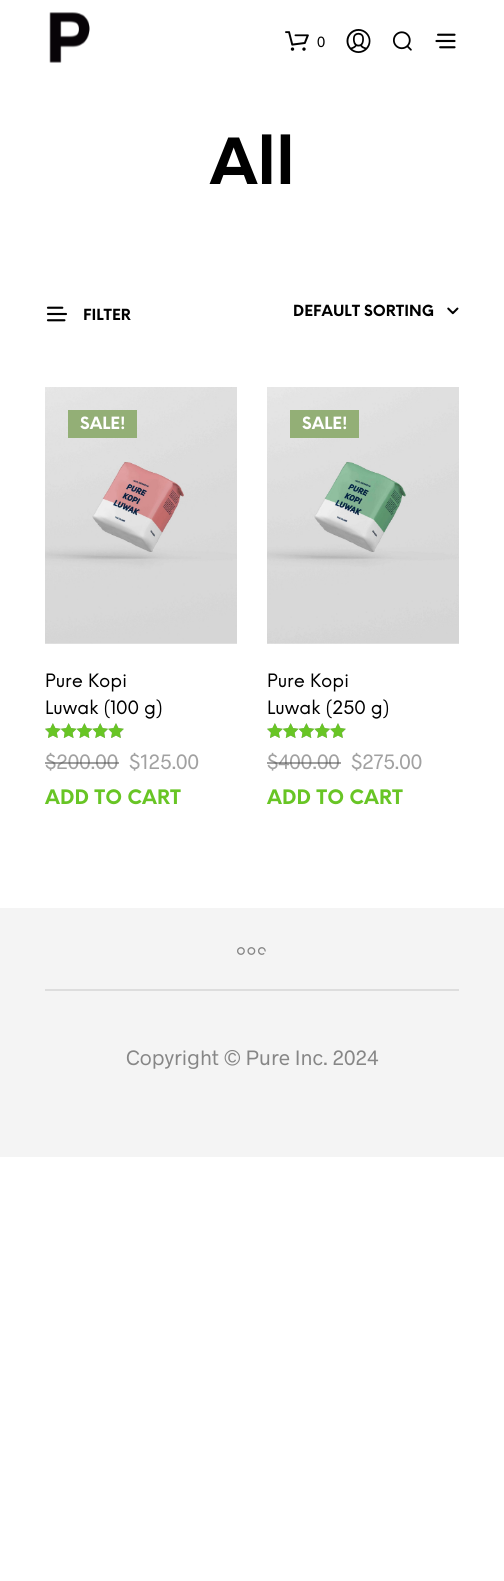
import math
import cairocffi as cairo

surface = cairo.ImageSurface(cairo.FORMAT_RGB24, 504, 1581)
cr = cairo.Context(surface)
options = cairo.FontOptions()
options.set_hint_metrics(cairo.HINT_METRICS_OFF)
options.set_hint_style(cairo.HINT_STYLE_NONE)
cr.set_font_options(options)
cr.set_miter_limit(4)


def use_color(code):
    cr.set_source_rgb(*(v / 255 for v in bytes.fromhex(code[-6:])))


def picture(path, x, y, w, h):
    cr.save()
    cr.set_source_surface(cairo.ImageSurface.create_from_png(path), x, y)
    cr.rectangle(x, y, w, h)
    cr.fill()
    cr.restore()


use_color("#ffffff")
cr.paint()
picture("img1.png", 49, 12, 41, 51)
picture("img2.png", 285, 31, 24, 20)
cr.select_font_face("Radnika")
cr.set_font_size(15)
use_color("#000000")
cr.move_to(317, 47)
cr.show_text("0")
picture("img3.png", 346, 29, 25, 24)
picture("img4.png", 393, 31, 19, 20)
picture("img5.png", 435, 33, 21, 16)
cr.select_font_face("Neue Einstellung", cairo.FONT_SLANT_NORMAL, cairo.FONT_WEIGHT_BOLD)
cr.set_font_size(62)
cr.move_to(210, 184)
cr.show_text("All")
picture("img6.png", 46, 306, 21, 16)
cr.set_font_size(15)
cr.move_to(83, 320)
cr.show_text("FILTER")
cr.move_to(293, 316)
cr.show_text("DEFAULT SORTING")
picture("img7.png", 447, 307, 12, 8)
picture("img8.png", 45, 387, 192, 257)
use_color("#93af76")
cr.rectangle(68, 410, 69, 28)
cr.fill()
cr.set_font_size(16.5)
use_color("#ffffff")
cr.move_to(80, 429)
cr.show_text("SALE!")
cr.select_font_face("Neue Einstellung")
cr.set_font_size(18)
use_color("#000000")
cr.move_to(45, 687)
cr.show_text("Pure Kopi")
cr.move_to(45, 714)
cr.show_text("Luwak (100 g)")
picture("img9.png", 45, 723, 79, 15)
picture("img10.png", 45, 723, 79, 15)
cr.select_font_face("Radnika")
cr.set_font_size(21)
use_color("#a1a1a1")
cr.move_to(45, 769)
cr.show_text("$200.00")
cr.set_source_rgba(0.329, 0.329, 0.329, 0.55)
cr.rectangle(45, 762, 12, 2)
cr.fill()
cr.rectangle(57, 762, 62, 2)
cr.fill()
use_color("#a1a1a1")
cr.move_to(129, 769)
cr.show_text("$125.00")
cr.select_font_face("Neue Einstellung", cairo.FONT_SLANT_NORMAL, cairo.FONT_WEIGHT_BOLD)
cr.set_font_size(19.5)
use_color("#68c525")
cr.move_to(45, 804)
cr.show_text("ADD TO CART")
picture("img11.png", 267, 387, 192, 257)
use_color("#93af76")
cr.rectangle(290, 410, 69, 28)
cr.fill()
cr.set_font_size(16.5)
use_color("#ffffff")
cr.move_to(302, 429)
cr.show_text("SALE!")
cr.select_font_face("Neue Einstellung")
cr.set_font_size(18)
use_color("#000000")
cr.move_to(267, 687)
cr.show_text("Pure Kopi")
cr.move_to(267, 714)
cr.show_text("Luwak (250 g)")
picture("img9.png", 267, 723, 79, 15)
picture("img10.png", 267, 723, 79, 15)
cr.select_font_face("Radnika")
cr.set_font_size(21)
use_color("#a1a1a1")
cr.move_to(267, 769)
cr.show_text("$")
cr.set_source_rgba(0.329, 0.329, 0.329, 0.55)
cr.rectangle(267, 762, 12, 2)
cr.fill()
use_color("#a1a1a1")
cr.move_to(278, 769)
cr.show_text("400.00")
cr.set_source_rgba(0.329, 0.329, 0.329, 0.55)
cr.rectangle(279, 762, 62, 2)
cr.fill()
use_color("#a1a1a1")
cr.move_to(351, 769)
cr.show_text("$275.00")
cr.select_font_face("Neue Einstellung", cairo.FONT_SLANT_NORMAL, cairo.FONT_WEIGHT_BOLD)
cr.set_font_size(19.5)
use_color("#68c525")
cr.move_to(267, 804)
cr.show_text("ADD TO CART")
use_color("#f4f4f4")
cr.rectangle(0, 908, 504, 249)
cr.fill()
use_color("#dddddd")
cr.rectangle(45, 989, 414, 2)
cr.fill()
picture("img12.png", 237, 947, 29, 8)
cr.select_font_face("Radnika")
cr.set_font_size(21)
use_color("#868686")
cr.move_to(126, 1065)
cr.show_text("Copyright © Pure Inc. 2024")
surface.write_to_png("result.png")
